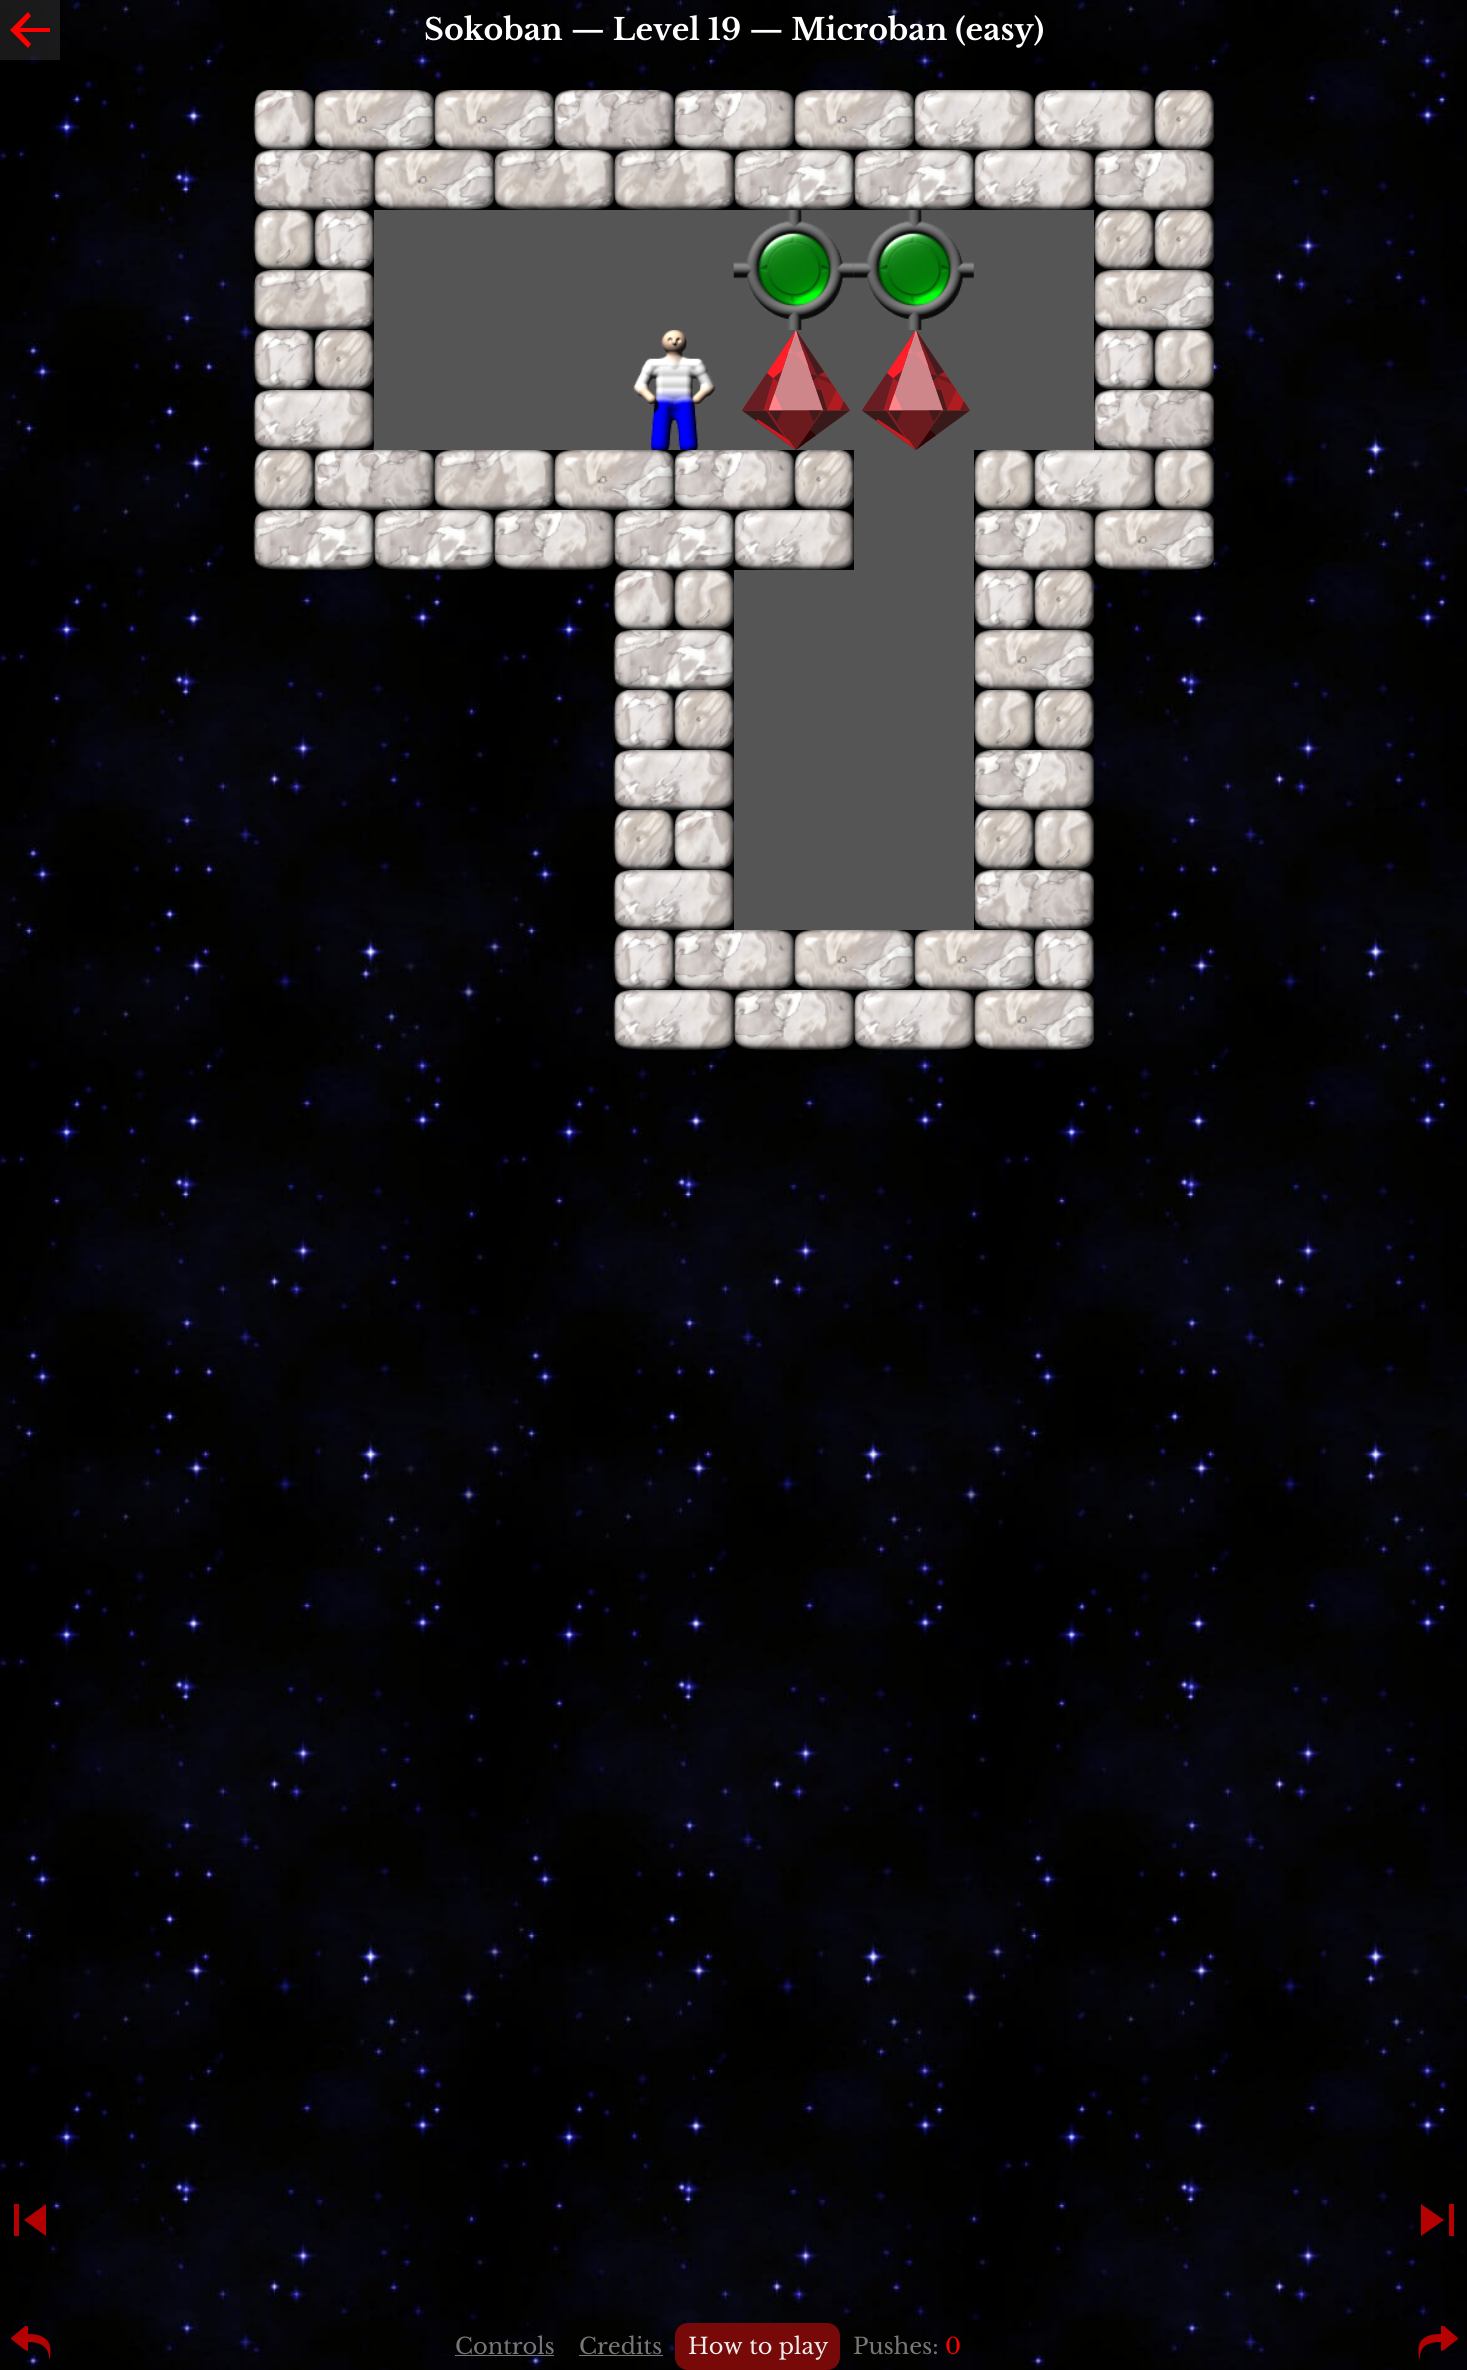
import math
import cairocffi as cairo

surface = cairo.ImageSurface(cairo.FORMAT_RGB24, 1467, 2370)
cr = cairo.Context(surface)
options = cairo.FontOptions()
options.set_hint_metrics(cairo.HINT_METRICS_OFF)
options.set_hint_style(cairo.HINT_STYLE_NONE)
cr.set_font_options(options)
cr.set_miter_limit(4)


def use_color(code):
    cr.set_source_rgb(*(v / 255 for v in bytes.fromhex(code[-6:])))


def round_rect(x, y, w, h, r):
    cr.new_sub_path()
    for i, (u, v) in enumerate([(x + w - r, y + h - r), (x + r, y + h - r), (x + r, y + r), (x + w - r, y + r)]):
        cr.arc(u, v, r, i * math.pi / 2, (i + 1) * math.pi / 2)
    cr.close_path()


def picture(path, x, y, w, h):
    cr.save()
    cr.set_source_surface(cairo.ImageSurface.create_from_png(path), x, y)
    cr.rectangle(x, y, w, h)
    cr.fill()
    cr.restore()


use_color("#ffffff")
cr.paint()
picture("img1.png", 0, 0, 1467, 2370)
cr.set_source_rgba(1, 1, 1, 0.1)
cr.rectangle(0, 0, 60, 60)
cr.fill()
use_color("#ff0000")
cr.new_path()
cr.move_to(28, 12)
cr.line_to(10, 30)
cr.line_to(28, 48)
cr.line_to(31, 44)
cr.line_to(20, 32)
cr.line_to(50, 32)
cr.line_to(50, 28)
cr.line_to(20, 28)
cr.line_to(31, 16)
cr.close_path()
cr.fill()
cr.select_font_face("Libre Baskerville", cairo.FONT_SLANT_NORMAL, cairo.FONT_WEIGHT_BOLD)
cr.set_font_size(30)
use_color("#ffffff")
cr.move_to(424, 40)
cr.show_text("Sokoban — Level 19 — Microban (easy)")
picture("img2.png", 253, 90, 61, 60)
picture("img3.png", 313, 90, 121, 60)
picture("img4.png", 433, 90, 121, 60)
picture("img5.png", 553, 90, 121, 60)
picture("img6.png", 673, 90, 121, 60)
picture("img7.png", 793, 90, 121, 60)
picture("img8.png", 913, 90, 121, 60)
picture("img10.png", 1153, 90, 61, 60)
picture("img9.png", 1033, 90, 121, 60)
picture("img11.png", 253, 150, 121, 60)
picture("img12.png", 373, 150, 121, 60)
picture("img13.png", 493, 150, 121, 60)
picture("img14.png", 613, 150, 121, 60)
picture("img15.png", 733, 150, 121, 60)
picture("img16.png", 853, 150, 121, 60)
picture("img17.png", 973, 150, 121, 60)
picture("img18.png", 1093, 150, 121, 60)
picture("img19.png", 253, 210, 61, 60)
picture("img20.png", 313, 210, 61, 60)
picture("img21.png", 253, 270, 121, 60)
use_color("#555555")
cr.rectangle(374, 210, 720, 120)
cr.fill()
picture("img22.png", 733, 210, 121, 120)
picture("img23.png", 853, 210, 121, 120)
picture("img24.png", 1094, 210, 60, 60)
picture("img25.png", 1153, 210, 61, 60)
picture("img26.png", 1094, 270, 120, 60)
picture("img27.png", 253, 330, 61, 60)
picture("img28.png", 313, 330, 61, 60)
picture("img29.png", 253, 390, 121, 60)
cr.rectangle(374, 330, 720, 120)
cr.fill()
picture("img30.png", 633, 330, 83, 120)
picture("img31.png", 741, 330, 109, 120)
picture("img31.png", 861, 330, 109, 120)
picture("img32.png", 1094, 330, 60, 60)
picture("img33.png", 1153, 330, 61, 60)
picture("img34.png", 1094, 390, 120, 60)
picture("img35.png", 253, 450, 61, 60)
picture("img36.png", 313, 450, 121, 60)
picture("img37.png", 433, 450, 121, 60)
picture("img38.png", 553, 450, 121, 60)
picture("img40.png", 793, 450, 61, 60)
picture("img39.png", 673, 450, 121, 60)
picture("img41.png", 253, 510, 121, 60)
picture("img42.png", 373, 510, 121, 60)
picture("img43.png", 493, 510, 121, 60)
picture("img44.png", 613, 510, 121, 60)
picture("img45.png", 733, 510, 121, 60)
cr.rectangle(854, 450, 120, 120)
cr.fill()
picture("img46.png", 974, 450, 60, 60)
picture("img48.png", 1153, 450, 61, 60)
picture("img47.png", 1033, 450, 121, 60)
picture("img49.png", 974, 510, 120, 60)
picture("img50.png", 1093, 510, 121, 60)
picture("img51.png", 613, 570, 61, 60)
picture("img52.png", 673, 570, 61, 60)
picture("img53.png", 613, 630, 121, 60)
cr.rectangle(734, 570, 240, 120)
cr.fill()
picture("img54.png", 974, 570, 60, 60)
picture("img55.png", 1033, 570, 61, 60)
picture("img56.png", 974, 630, 120, 60)
picture("img57.png", 613, 690, 61, 60)
picture("img58.png", 673, 690, 61, 60)
picture("img59.png", 613, 750, 121, 60)
cr.rectangle(734, 690, 240, 120)
cr.fill()
picture("img60.png", 974, 690, 60, 60)
picture("img61.png", 1033, 690, 61, 60)
picture("img62.png", 974, 750, 120, 60)
picture("img63.png", 613, 810, 61, 60)
picture("img64.png", 673, 810, 61, 60)
picture("img65.png", 613, 870, 121, 60)
cr.rectangle(734, 810, 240, 120)
cr.fill()
picture("img66.png", 974, 810, 60, 60)
picture("img67.png", 1033, 810, 61, 60)
picture("img68.png", 974, 870, 120, 60)
picture("img69.png", 613, 930, 61, 60)
picture("img70.png", 673, 930, 121, 60)
picture("img71.png", 793, 930, 121, 60)
picture("img73.png", 1033, 930, 61, 60)
picture("img72.png", 913, 930, 121, 60)
picture("img74.png", 613, 990, 121, 60)
picture("img75.png", 733, 990, 121, 60)
picture("img76.png", 853, 990, 121, 60)
picture("img77.png", 973, 990, 121, 60)
use_color("#b30000")
cr.new_path()
cr.move_to(46, 2236)
cr.line_to(24, 2220)
cr.line_to(46, 2204)
cr.close_path()
cr.move_to(19, 2204)
cr.line_to(19, 2236)
cr.line_to(14, 2236)
cr.line_to(14, 2204)
cr.close_path()
cr.fill()
cr.set_source_rgba(1, 0, 0, 0.7)
cr.new_path()
cr.move_to(1421, 2236)
cr.line_to(1444, 2220)
cr.line_to(1421, 2204)
cr.close_path()
cr.move_to(1449, 2204)
cr.line_to(1449, 2236)
cr.line_to(1454, 2236)
cr.line_to(1454, 2204)
cr.close_path()
cr.fill()
cr.new_path()
cr.move_to(26, 2326)
cr.line_to(25, 2326)
cr.line_to(11, 2338)
cr.line_to(11, 2339)
cr.line_to(25, 2350)
cr.line_to(28, 2351)
cr.line_to(28, 2342)
cr.curve_to(42, 2342, 50, 2348, 49, 2361)
cr.curve_to(55, 2339, 42, 2334, 28, 2334)
cr.line_to(28, 2326)
cr.close_path()
cr.fill()
cr.new_path()
cr.move_to(1441, 2326)
cr.line_to(1444, 2326)
cr.line_to(1458, 2338)
cr.line_to(1458, 2339)
cr.line_to(1444, 2350)
cr.line_to(1441, 2351)
cr.line_to(1441, 2342)
cr.curve_to(1425, 2342, 1419, 2348, 1420, 2361)
cr.curve_to(1414, 2339, 1426, 2334, 1441, 2334)
cr.close_path()
cr.fill()
cr.select_font_face("Libre Baskerville")
cr.set_font_size(22.5)
use_color("#777777")
cr.move_to(455, 2354)
cr.show_text("Controls")
cr.rectangle(455, 2355, 99, 1)
cr.fill()
cr.move_to(579, 2354)
cr.show_text("Credits")
cr.rectangle(579, 2355, 84, 1)
cr.fill()
use_color("#780909")
round_rect(675, 2323, 165, 47, 13)
cr.fill()
use_color("#eeeeee")
cr.move_to(688, 2354)
cr.show_text("How to play")
use_color("#777777")
cr.move_to(853, 2354)
cr.show_text("Pushes:")
use_color("#ff0000")
cr.move_to(945, 2354)
cr.show_text("0")
surface.write_to_png("result.png")
